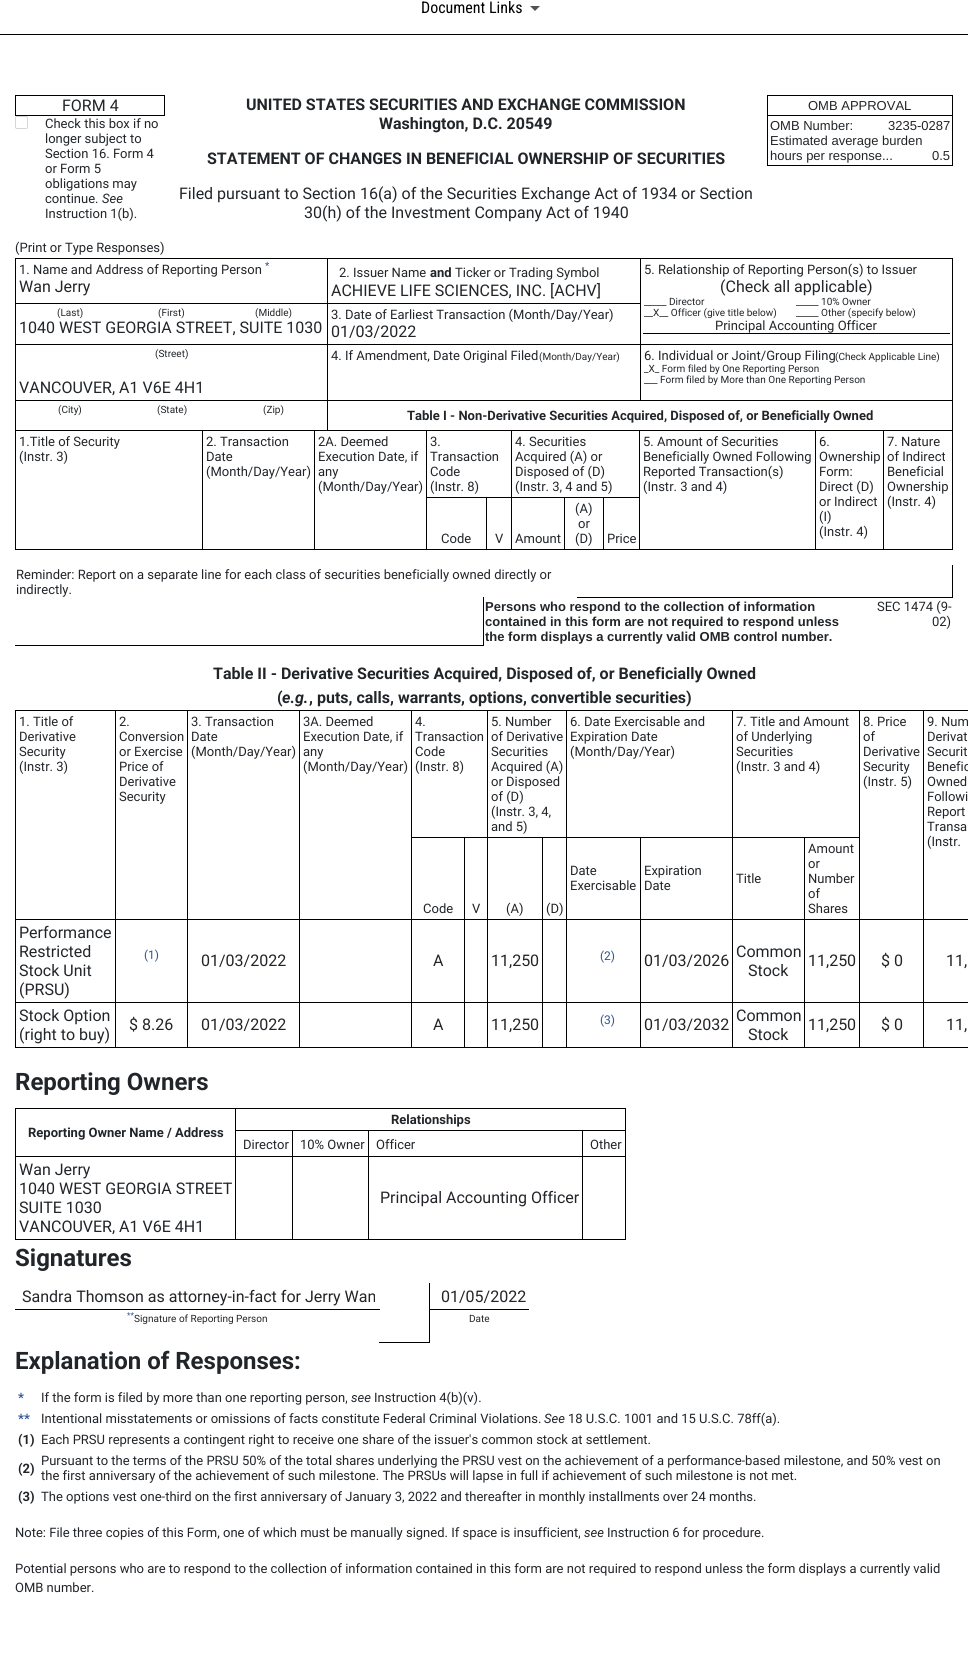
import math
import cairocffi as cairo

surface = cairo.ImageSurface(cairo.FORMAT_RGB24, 968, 1658)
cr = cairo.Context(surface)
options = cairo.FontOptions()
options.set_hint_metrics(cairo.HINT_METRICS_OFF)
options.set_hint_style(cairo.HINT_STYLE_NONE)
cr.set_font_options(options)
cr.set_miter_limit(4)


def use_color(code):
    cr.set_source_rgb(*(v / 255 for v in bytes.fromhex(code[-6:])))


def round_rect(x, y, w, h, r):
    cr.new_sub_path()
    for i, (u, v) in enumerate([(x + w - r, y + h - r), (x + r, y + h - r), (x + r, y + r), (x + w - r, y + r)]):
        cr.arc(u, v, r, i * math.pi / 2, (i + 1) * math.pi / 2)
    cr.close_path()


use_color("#ffffff")
cr.paint()
use_color("#000000")
cr.rectangle(0, 34, 968, 1)
cr.fill()
cr.select_font_face("Roboto Condensed")
cr.set_font_size(16)
cr.move_to(421, 13)
cr.show_text("Document Links")
use_color("#525252")
cr.new_path()
cr.move_to(530, 6)
cr.line_to(540, 6)
cr.line_to(535, 11)
cr.close_path()
cr.fill()
cr.rectangle(15.5, 95.5, 149, 20)
use_color("#000000")
cr.set_line_width(1)
cr.stroke()
cr.select_font_face("Roboto")
use_color("#212529")
cr.move_to(62, 111)
cr.show_text("FORM 4")
round_rect(15.5, 116.5, 12, 12, 1.5)
use_color("#d6d6d6")
cr.stroke()
cr.set_font_size(13)
use_color("#212529")
cr.move_to(45, 128)
cr.show_text("Check this box if no")
cr.move_to(45, 143)
cr.show_text("longer subject to")
cr.move_to(45, 158)
cr.show_text("Section 16. Form 4")
cr.move_to(45, 173)
cr.show_text("or Form 5")
cr.move_to(45, 188)
cr.show_text("obligations may")
cr.move_to(45, 203)
cr.show_text("continue.")
cr.select_font_face("Roboto", cairo.FONT_SLANT_ITALIC)
cr.move_to(102, 203)
cr.show_text("See")
cr.select_font_face("Roboto")
cr.move_to(45, 218)
cr.show_text("Instruction 1(b).")
cr.select_font_face("Roboto", cairo.FONT_SLANT_NORMAL, cairo.FONT_WEIGHT_BOLD)
cr.set_font_size(16)
cr.move_to(246, 110)
cr.show_text("UNITED STATES SECURITIES AND EXCHANGE COMMISSION")
cr.move_to(379, 129)
cr.show_text("Washington, D.C. 20549")
cr.move_to(207, 164)
cr.show_text("STATEMENT OF CHANGES IN BENEFICIAL OWNERSHIP OF SECURITIES")
cr.select_font_face("Roboto")
cr.move_to(179, 199)
cr.show_text("Filed pursuant to Section 16(a) of the Securities Exchange Act of 1934 or Section")
cr.move_to(304, 218)
cr.show_text("30(h) of the Investment Company Act of 1940")
use_color("#000000")
cr.rectangle(767, 95, 186, 1)
cr.fill()
cr.rectangle(952, 115, 1, 51)
cr.fill()
cr.rectangle(952, 95, 1, 21)
cr.fill()
cr.rectangle(767, 165, 186, 1)
cr.fill()
cr.rectangle(767, 115, 1, 51)
cr.fill()
cr.rectangle(767, 115, 186, 1)
cr.fill()
cr.rectangle(767, 95, 1, 21)
cr.fill()
cr.select_font_face("Liberation Sans")
cr.set_font_size(13)
use_color("#212529")
cr.move_to(808, 110)
cr.show_text("OMB APPROVAL")
cr.move_to(770, 130)
cr.show_text("OMB Number:")
cr.move_to(888, 130)
cr.show_text("3235-0287")
cr.move_to(770, 145)
cr.show_text("Estimated average burden")
cr.move_to(770, 160)
cr.show_text("hours per response...")
cr.move_to(932, 160)
cr.show_text("0.5")
cr.select_font_face("Roboto")
cr.move_to(15, 252)
cr.show_text("(Print or Type Responses)")
use_color("#000000")
cr.rectangle(15, 258, 938, 1)
cr.fill()
cr.rectangle(952, 344, 1, 87)
cr.fill()
cr.rectangle(640, 400, 313, 1)
cr.fill()
cr.rectangle(640, 303, 1, 98)
cr.fill()
cr.rectangle(640, 258, 1, 46)
cr.fill()
cr.rectangle(327, 430, 626, 1)
cr.fill()
cr.rectangle(327, 400, 1, 31)
cr.fill()
cr.rectangle(327, 400, 314, 1)
cr.fill()
cr.rectangle(327, 344, 1, 57)
cr.fill()
cr.rectangle(327, 344, 314, 1)
cr.fill()
cr.rectangle(327, 303, 1, 42)
cr.fill()
cr.rectangle(327, 303, 314, 1)
cr.fill()
cr.rectangle(327, 258, 1, 46)
cr.fill()
cr.rectangle(15, 430, 313, 1)
cr.fill()
cr.rectangle(15, 400, 1, 31)
cr.fill()
cr.rectangle(15, 400, 313, 1)
cr.fill()
cr.rectangle(15, 344, 1, 57)
cr.fill()
cr.rectangle(15, 344, 313, 1)
cr.fill()
cr.rectangle(15, 303, 1, 42)
cr.fill()
cr.rectangle(15, 303, 313, 1)
cr.fill()
cr.rectangle(15, 258, 1, 46)
cr.fill()
use_color("#212529")
cr.move_to(19, 274)
cr.show_text("1. Name and Address of Reporting Person")
cr.set_font_size(10)
use_color("#2e5691")
cr.move_to(265, 269)
cr.show_text("*")
cr.set_font_size(16)
use_color("#212529")
cr.move_to(19, 292)
cr.show_text("Wan Jerry")
cr.set_font_size(13)
cr.move_to(339, 277)
cr.show_text("2. Issuer Name")
cr.select_font_face("Roboto", cairo.FONT_SLANT_NORMAL, cairo.FONT_WEIGHT_BOLD)
cr.move_to(430, 277)
cr.show_text("and")
cr.select_font_face("Roboto")
cr.move_to(455, 277)
cr.show_text("Ticker or Trading Symbol")
cr.set_font_size(16)
cr.move_to(331, 296)
cr.show_text("ACHIEVE LIFE SCIENCES, INC. [ACHV]")
use_color("#000000")
cr.rectangle(952, 258, 1, 87)
cr.fill()
cr.rectangle(640, 344, 313, 1)
cr.fill()
cr.set_font_size(13)
use_color("#212529")
cr.move_to(644, 274)
cr.show_text("5. Relationship of Reporting Person(s) to Issuer")
cr.set_font_size(16)
cr.move_to(720, 292)
cr.show_text("(Check all applicable)")
cr.set_font_size(10)
cr.move_to(644, 305)
cr.show_text("_____ Director")
cr.move_to(796, 305)
cr.show_text("_____ 10% Owner")
cr.move_to(644, 316)
cr.show_text("__X__ Officer (give title below)")
cr.move_to(796, 316)
cr.show_text("_____ Other (specify below)")
use_color("#000000")
cr.rectangle(643, 333, 307, 1)
cr.fill()
cr.set_font_size(13)
use_color("#212529")
cr.move_to(715, 330)
cr.show_text("Principal Accounting Officer")
cr.set_font_size(10)
cr.move_to(57, 316)
cr.show_text("(Last)")
cr.move_to(158, 316)
cr.show_text("(First)")
cr.move_to(255, 316)
cr.show_text("(Middle)")
cr.set_font_size(16)
cr.move_to(19, 333)
cr.show_text("1040 WEST GEORGIA STREET, SUITE 1030")
cr.set_font_size(13)
cr.move_to(331, 319)
cr.show_text("3. Date of Earliest Transaction (Month/Day/Year)")
cr.set_font_size(16)
cr.move_to(331, 337)
cr.show_text("01/03/2022")
cr.set_font_size(10)
cr.move_to(155, 357)
cr.show_text("(Street)")
cr.set_font_size(16)
cr.move_to(19, 393)
cr.show_text("VANCOUVER, A1 V6E 4H1")
cr.set_font_size(13)
cr.move_to(331, 360)
cr.show_text("4. If Amendment, Date Original Filed")
cr.set_font_size(10)
cr.move_to(539, 360)
cr.show_text("(Month/Day/Year)")
cr.set_font_size(13)
cr.move_to(644, 360)
cr.show_text("6. Individual or Joint/Group Filing")
cr.set_font_size(10)
cr.move_to(835, 360)
cr.show_text("(Check Applicable Line)")
cr.move_to(644, 372)
cr.show_text("_X_ Form filed by One Reporting Person")
cr.move_to(644, 383)
cr.show_text("___ Form filed by More than One Reporting Person")
cr.move_to(58, 413)
cr.show_text("(City)")
cr.move_to(157, 413)
cr.show_text("(State)")
cr.move_to(263, 413)
cr.show_text("(Zip)")
cr.select_font_face("Roboto", cairo.FONT_SLANT_NORMAL, cairo.FONT_WEIGHT_BOLD)
cr.set_font_size(13)
cr.move_to(407, 420)
cr.show_text("Table I - Non-Derivative Securities Acquired, Disposed of, or Beneficially Owned")
use_color("#000000")
cr.rectangle(639, 430, 1, 120)
cr.fill()
cr.rectangle(603, 549, 37, 1)
cr.fill()
cr.rectangle(603, 497, 1, 53)
cr.fill()
cr.rectangle(564, 549, 40, 1)
cr.fill()
cr.rectangle(564, 497, 1, 53)
cr.fill()
cr.rectangle(511, 549, 54, 1)
cr.fill()
cr.rectangle(511, 497, 1, 53)
cr.fill()
cr.rectangle(511, 497, 129, 1)
cr.fill()
cr.rectangle(511, 430, 1, 68)
cr.fill()
cr.rectangle(486, 549, 26, 1)
cr.fill()
cr.rectangle(486, 497, 1, 53)
cr.fill()
cr.rectangle(426, 497, 86, 1)
cr.fill()
cr.rectangle(426, 549, 61, 1)
cr.fill()
cr.rectangle(426, 430, 1, 120)
cr.fill()
cr.rectangle(314, 549, 113, 1)
cr.fill()
cr.rectangle(314, 430, 1, 120)
cr.fill()
cr.rectangle(202, 549, 113, 1)
cr.fill()
cr.rectangle(202, 430, 1, 120)
cr.fill()
cr.rectangle(15, 549, 188, 1)
cr.fill()
cr.rectangle(15, 430, 1, 120)
cr.fill()
cr.select_font_face("Roboto")
use_color("#212529")
cr.move_to(19, 446)
cr.show_text("1.Title of Security")
cr.move_to(19, 461)
cr.show_text("(Instr. 3)")
cr.move_to(206, 446)
cr.show_text("2. Transaction")
cr.move_to(206, 461)
cr.show_text("Date")
cr.move_to(206, 476)
cr.show_text("(Month/Day/Year)")
cr.move_to(318, 446)
cr.show_text("2A. Deemed")
cr.move_to(318, 461)
cr.show_text("Execution Date, if")
cr.move_to(318, 476)
cr.show_text("any")
cr.move_to(318, 491)
cr.show_text("(Month/Day/Year)")
cr.move_to(430, 446)
cr.show_text("3.")
cr.move_to(430, 461)
cr.show_text("Transaction")
cr.move_to(430, 476)
cr.show_text("Code")
cr.move_to(430, 491)
cr.show_text("(Instr. 8)")
cr.move_to(515, 446)
cr.show_text("4. Securities")
cr.move_to(515, 461)
cr.show_text("Acquired (A) or")
cr.move_to(515, 476)
cr.show_text("Disposed of (D)")
cr.move_to(515, 491)
cr.show_text("(Instr. 3, 4 and 5)")
use_color("#000000")
cr.rectangle(952, 430, 1, 120)
cr.fill()
cr.rectangle(883, 549, 70, 1)
cr.fill()
cr.rectangle(883, 430, 1, 120)
cr.fill()
cr.rectangle(815, 549, 69, 1)
cr.fill()
cr.rectangle(815, 430, 1, 120)
cr.fill()
cr.rectangle(639, 549, 177, 1)
cr.fill()
use_color("#212529")
cr.move_to(643, 446)
cr.show_text("5. Amount of Securities")
cr.move_to(643, 461)
cr.show_text("Beneficially Owned Following")
cr.move_to(643, 476)
cr.show_text("Reported Transaction(s)")
cr.move_to(643, 491)
cr.show_text("(Instr. 3 and 4)")
cr.move_to(819, 446)
cr.show_text("6.")
cr.move_to(819, 461)
cr.show_text("Ownership")
cr.move_to(819, 476)
cr.show_text("Form:")
cr.move_to(819, 491)
cr.show_text("Direct (D)")
cr.move_to(819, 506)
cr.show_text("or Indirect")
cr.move_to(819, 521)
cr.show_text("(I)")
cr.move_to(819, 536)
cr.show_text("(Instr. 4)")
cr.move_to(887, 446)
cr.show_text("7. Nature")
cr.move_to(887, 461)
cr.show_text("of Indirect")
cr.move_to(887, 476)
cr.show_text("Beneficial")
cr.move_to(887, 491)
cr.show_text("Ownership")
cr.move_to(887, 506)
cr.show_text("(Instr. 4)")
cr.move_to(441, 543)
cr.show_text("Code")
cr.move_to(495, 543)
cr.show_text("V")
cr.move_to(515, 543)
cr.show_text("Amount")
cr.move_to(575, 513)
cr.show_text("(A)")
cr.move_to(578, 528)
cr.show_text("or")
cr.move_to(575, 543)
cr.show_text("(D)")
cr.move_to(607, 543)
cr.show_text("Price")
cr.move_to(16, 579)
cr.show_text("Reminder: Report on a separate line for each class of securities beneficially owned directly or")
cr.move_to(16, 594)
cr.show_text("indirectly.")
use_color("#000000")
cr.rectangle(952, 565, 1, 33)
cr.fill()
cr.rectangle(577, 597, 376, 1)
cr.fill()
cr.rectangle(483, 597, 1, 49)
cr.fill()
cr.rectangle(15, 645, 469, 1)
cr.fill()
cr.select_font_face("Liberation Sans", cairo.FONT_SLANT_NORMAL, cairo.FONT_WEIGHT_BOLD)
use_color("#212529")
cr.move_to(485, 611)
cr.show_text("Persons who respond to the collection of information")
cr.move_to(485, 626)
cr.show_text("contained in this form are not required to respond unless")
cr.move_to(485, 641)
cr.show_text("the form displays a currently valid OMB control number.")
cr.select_font_face("Roboto")
cr.move_to(877, 611)
cr.show_text("SEC 1474 (9-")
cr.move_to(932, 626)
cr.show_text("02)")
cr.select_font_face("Roboto", cairo.FONT_SLANT_NORMAL, cairo.FONT_WEIGHT_BOLD)
cr.set_font_size(16)
cr.move_to(213, 679)
cr.show_text("Table II - Derivative Securities Acquired, Disposed of, or Beneficially Owned")
cr.move_to(277, 703)
cr.show_text("(")
cr.select_font_face("Roboto", cairo.FONT_SLANT_ITALIC, cairo.FONT_WEIGHT_BOLD)
cr.move_to(282, 703)
cr.show_text("e.g.")
cr.select_font_face("Roboto", cairo.FONT_SLANT_NORMAL, cairo.FONT_WEIGHT_BOLD)
cr.move_to(309, 703)
cr.show_text(", puts, calls, warrants, options, convertible securities)")
use_color("#000000")
cr.rectangle(15, 710, 953, 1)
cr.fill()
cr.rectangle(923, 1047, 45, 1)
cr.fill()
cr.rectangle(923, 1002, 1, 46)
cr.fill()
cr.rectangle(923, 1002, 45, 1)
cr.fill()
cr.rectangle(923, 919, 1, 84)
cr.fill()
cr.rectangle(859, 1047, 65, 1)
cr.fill()
cr.rectangle(859, 1002, 1, 46)
cr.fill()
cr.rectangle(859, 1002, 65, 1)
cr.fill()
cr.rectangle(859, 837, 1, 166)
cr.fill()
cr.rectangle(859, 710, 1, 128)
cr.fill()
cr.rectangle(804, 1047, 56, 1)
cr.fill()
cr.rectangle(804, 1002, 1, 46)
cr.fill()
cr.rectangle(804, 1002, 56, 1)
cr.fill()
cr.rectangle(804, 919, 1, 84)
cr.fill()
cr.rectangle(804, 919, 56, 1)
cr.fill()
cr.rectangle(804, 837, 1, 83)
cr.fill()
cr.rectangle(732, 1047, 73, 1)
cr.fill()
cr.rectangle(732, 1002, 1, 46)
cr.fill()
cr.rectangle(732, 1002, 73, 1)
cr.fill()
cr.rectangle(732, 919, 1, 84)
cr.fill()
cr.rectangle(732, 919, 73, 1)
cr.fill()
cr.rectangle(732, 837, 1, 83)
cr.fill()
cr.rectangle(732, 837, 128, 1)
cr.fill()
cr.rectangle(732, 710, 1, 128)
cr.fill()
cr.rectangle(640, 1047, 93, 1)
cr.fill()
cr.rectangle(640, 1002, 1, 46)
cr.fill()
cr.rectangle(640, 1002, 93, 1)
cr.fill()
cr.rectangle(640, 919, 1, 84)
cr.fill()
cr.rectangle(640, 919, 93, 1)
cr.fill()
cr.rectangle(640, 837, 1, 83)
cr.fill()
cr.rectangle(566, 1047, 75, 1)
cr.fill()
cr.rectangle(566, 1002, 1, 46)
cr.fill()
cr.rectangle(566, 1002, 75, 1)
cr.fill()
cr.rectangle(566, 919, 1, 84)
cr.fill()
cr.rectangle(566, 919, 75, 1)
cr.fill()
cr.rectangle(566, 837, 1, 83)
cr.fill()
cr.rectangle(566, 837, 167, 1)
cr.fill()
cr.rectangle(566, 710, 1, 128)
cr.fill()
cr.rectangle(542, 1047, 25, 1)
cr.fill()
cr.rectangle(542, 1002, 1, 46)
cr.fill()
cr.rectangle(542, 1002, 25, 1)
cr.fill()
cr.rectangle(542, 919, 1, 84)
cr.fill()
cr.rectangle(542, 919, 25, 1)
cr.fill()
cr.rectangle(542, 837, 1, 83)
cr.fill()
cr.rectangle(487, 1047, 56, 1)
cr.fill()
cr.rectangle(487, 1002, 1, 46)
cr.fill()
cr.rectangle(487, 1002, 56, 1)
cr.fill()
cr.rectangle(487, 919, 1, 84)
cr.fill()
cr.rectangle(487, 919, 56, 1)
cr.fill()
cr.rectangle(487, 837, 1, 83)
cr.fill()
cr.rectangle(487, 837, 80, 1)
cr.fill()
cr.rectangle(487, 710, 1, 128)
cr.fill()
cr.rectangle(464, 1047, 24, 1)
cr.fill()
cr.rectangle(464, 1002, 1, 46)
cr.fill()
cr.rectangle(464, 1002, 24, 1)
cr.fill()
cr.rectangle(464, 919, 1, 84)
cr.fill()
cr.rectangle(464, 919, 24, 1)
cr.fill()
cr.rectangle(464, 837, 1, 83)
cr.fill()
cr.rectangle(411, 837, 77, 1)
cr.fill()
cr.rectangle(411, 1047, 54, 1)
cr.fill()
cr.rectangle(411, 1002, 1, 46)
cr.fill()
cr.rectangle(411, 1002, 54, 1)
cr.fill()
cr.rectangle(411, 919, 1, 84)
cr.fill()
cr.rectangle(411, 919, 54, 1)
cr.fill()
cr.rectangle(411, 710, 1, 210)
cr.fill()
cr.rectangle(299, 1047, 113, 1)
cr.fill()
cr.rectangle(299, 1002, 1, 46)
cr.fill()
cr.rectangle(299, 1002, 113, 1)
cr.fill()
cr.rectangle(299, 919, 1, 84)
cr.fill()
cr.rectangle(299, 919, 113, 1)
cr.fill()
cr.rectangle(299, 710, 1, 210)
cr.fill()
cr.rectangle(187, 1047, 113, 1)
cr.fill()
cr.rectangle(187, 1002, 1, 46)
cr.fill()
cr.rectangle(187, 1002, 113, 1)
cr.fill()
cr.rectangle(187, 919, 1, 84)
cr.fill()
cr.rectangle(187, 919, 113, 1)
cr.fill()
cr.rectangle(187, 710, 1, 210)
cr.fill()
cr.rectangle(115, 1047, 73, 1)
cr.fill()
cr.rectangle(115, 1002, 1, 46)
cr.fill()
cr.rectangle(115, 1002, 73, 1)
cr.fill()
cr.rectangle(115, 919, 1, 84)
cr.fill()
cr.rectangle(115, 919, 73, 1)
cr.fill()
cr.rectangle(115, 710, 1, 210)
cr.fill()
cr.rectangle(15, 1047, 101, 1)
cr.fill()
cr.rectangle(15, 1002, 1, 46)
cr.fill()
cr.rectangle(15, 1002, 101, 1)
cr.fill()
cr.rectangle(15, 919, 1, 84)
cr.fill()
cr.rectangle(15, 919, 101, 1)
cr.fill()
cr.rectangle(15, 710, 1, 210)
cr.fill()
cr.select_font_face("Roboto")
cr.set_font_size(13)
use_color("#212529")
cr.move_to(19, 726)
cr.show_text("1. Title of")
cr.move_to(19, 741)
cr.show_text("Derivative")
cr.move_to(19, 756)
cr.show_text("Security")
cr.move_to(19, 771)
cr.show_text("(Instr. 3)")
cr.move_to(119, 726)
cr.show_text("2.")
cr.move_to(119, 741)
cr.show_text("Conversion")
cr.move_to(119, 756)
cr.show_text("or Exercise")
cr.move_to(119, 771)
cr.show_text("Price of")
cr.move_to(119, 786)
cr.show_text("Derivative")
cr.move_to(119, 801)
cr.show_text("Security")
cr.move_to(191, 726)
cr.show_text("3. Transaction")
cr.move_to(191, 741)
cr.show_text("Date")
cr.move_to(191, 756)
cr.show_text("(Month/Day/Year)")
cr.move_to(303, 726)
cr.show_text("3A. Deemed")
cr.move_to(303, 741)
cr.show_text("Execution Date, if")
cr.move_to(303, 756)
cr.show_text("any")
cr.move_to(303, 771)
cr.show_text("(Month/Day/Year)")
cr.move_to(415, 726)
cr.show_text("4.")
cr.move_to(415, 741)
cr.show_text("Transaction")
cr.move_to(415, 756)
cr.show_text("Code")
cr.move_to(415, 771)
cr.show_text("(Instr. 8)")
cr.move_to(491, 726)
cr.show_text("5. Number")
cr.move_to(491, 741)
cr.show_text("of Derivative")
cr.move_to(491, 756)
cr.show_text("Securities")
cr.move_to(491, 771)
cr.show_text("Acquired (A)")
cr.move_to(491, 786)
cr.show_text("or Disposed")
cr.move_to(491, 801)
cr.show_text("of (D)")
cr.move_to(491, 816)
cr.show_text("(Instr. 3, 4,")
cr.move_to(491, 831)
cr.show_text("and 5)")
cr.move_to(570, 726)
cr.show_text("6. Date Exercisable and")
cr.move_to(570, 741)
cr.show_text("Expiration Date")
cr.move_to(570, 756)
cr.show_text("(Month/Day/Year)")
cr.move_to(736, 726)
cr.show_text("7. Title and Amount")
cr.move_to(736, 741)
cr.show_text("of Underlying")
cr.move_to(736, 756)
cr.show_text("Securities")
cr.move_to(736, 771)
cr.show_text("(Instr. 3 and 4)")
use_color("#000000")
cr.rectangle(923, 919, 45, 1)
cr.fill()
cr.rectangle(923, 710, 1, 210)
cr.fill()
cr.rectangle(859, 919, 65, 1)
cr.fill()
use_color("#212529")
cr.move_to(863, 726)
cr.show_text("8. Price")
cr.move_to(863, 741)
cr.show_text("of")
cr.move_to(863, 756)
cr.show_text("Derivative")
cr.move_to(863, 771)
cr.show_text("Security")
cr.move_to(863, 786)
cr.show_text("(Instr. 5)")
cr.move_to(927, 726)
cr.show_text("9. Num")
cr.move_to(927, 741)
cr.show_text("Derivat")
cr.move_to(927, 756)
cr.show_text("Securit")
cr.move_to(927, 771)
cr.show_text("Benefic")
cr.move_to(927, 786)
cr.show_text("Owned")
cr.move_to(927, 801)
cr.show_text("Followi")
cr.move_to(927, 816)
cr.show_text("Report")
cr.move_to(927, 831)
cr.show_text("Transa")
cr.move_to(927, 846)
cr.show_text("(Instr.")
cr.move_to(570, 875)
cr.show_text("Date")
cr.move_to(570, 890)
cr.show_text("Exercisable")
cr.move_to(644, 875)
cr.show_text("Expiration")
cr.move_to(644, 890)
cr.show_text("Date")
cr.move_to(736, 883)
cr.show_text("Title")
cr.move_to(808, 853)
cr.show_text("Amount")
cr.move_to(808, 868)
cr.show_text("or")
cr.move_to(808, 883)
cr.show_text("Number")
cr.move_to(808, 898)
cr.show_text("of")
cr.move_to(808, 913)
cr.show_text("Shares")
cr.move_to(423, 913)
cr.show_text("Code")
cr.move_to(472, 913)
cr.show_text("V")
cr.move_to(506, 913)
cr.show_text("(A)")
cr.move_to(546, 913)
cr.show_text("(D)")
cr.set_font_size(16)
cr.move_to(19, 938)
cr.show_text("Performance")
cr.move_to(19, 957)
cr.show_text("Restricted")
cr.move_to(19, 976)
cr.show_text("Stock Unit")
cr.move_to(19, 995)
cr.show_text("(PRSU)")
cr.set_font_size(12)
use_color("#2e5691")
cr.move_to(144, 959)
cr.show_text("(1)")
cr.set_font_size(16)
use_color("#212529")
cr.move_to(201, 966)
cr.show_text("01/03/2022")
cr.move_to(433, 966)
cr.show_text("A")
cr.move_to(491, 966)
cr.show_text("11,250")
cr.set_font_size(12)
use_color("#2e5691")
cr.move_to(600, 960)
cr.show_text("(2)")
cr.set_font_size(16)
use_color("#212529")
cr.move_to(644, 966)
cr.show_text("01/03/2026")
cr.move_to(736, 957)
cr.show_text("Common")
cr.move_to(748, 976)
cr.show_text("Stock")
cr.move_to(808, 966)
cr.show_text("11,250")
cr.move_to(881, 966)
cr.show_text("$ 0")
cr.move_to(946, 966)
cr.show_text("11,")
cr.move_to(19, 1021)
cr.show_text("Stock Option")
cr.move_to(19, 1040)
cr.show_text("(right to buy)")
cr.move_to(129, 1030)
cr.show_text("$ 8.26")
cr.move_to(201, 1030)
cr.show_text("01/03/2022")
cr.move_to(433, 1030)
cr.show_text("A")
cr.move_to(491, 1030)
cr.show_text("11,250")
cr.set_font_size(12)
use_color("#2e5691")
cr.move_to(600, 1024)
cr.show_text("(3)")
cr.set_font_size(16)
use_color("#212529")
cr.move_to(644, 1030)
cr.show_text("01/03/2032")
cr.move_to(736, 1021)
cr.show_text("Common")
cr.move_to(748, 1040)
cr.show_text("Stock")
cr.move_to(808, 1030)
cr.show_text("11,250")
cr.move_to(881, 1030)
cr.show_text("$ 0")
cr.move_to(946, 1030)
cr.show_text("11,")
cr.select_font_face("Roboto", cairo.FONT_SLANT_NORMAL, cairo.FONT_WEIGHT_BOLD)
cr.set_font_size(24)
cr.move_to(15, 1090)
cr.show_text("Reporting Owners")
use_color("#000000")
cr.rectangle(15, 1108, 611, 1)
cr.fill()
cr.rectangle(625, 1130, 1, 110)
cr.fill()
cr.rectangle(625, 1108, 1, 23)
cr.fill()
cr.rectangle(582, 1239, 44, 1)
cr.fill()
cr.rectangle(582, 1156, 1, 84)
cr.fill()
cr.rectangle(582, 1156, 44, 1)
cr.fill()
cr.rectangle(582, 1130, 1, 27)
cr.fill()
cr.rectangle(368, 1239, 215, 1)
cr.fill()
cr.rectangle(368, 1156, 1, 84)
cr.fill()
cr.rectangle(368, 1156, 215, 1)
cr.fill()
cr.rectangle(368, 1130, 1, 27)
cr.fill()
cr.rectangle(292, 1239, 77, 1)
cr.fill()
cr.rectangle(292, 1156, 1, 84)
cr.fill()
cr.rectangle(292, 1156, 77, 1)
cr.fill()
cr.rectangle(292, 1130, 1, 27)
cr.fill()
cr.rectangle(235, 1130, 391, 1)
cr.fill()
cr.set_font_size(13)
use_color("#212529")
cr.move_to(391, 1124)
cr.show_text("Relationships")
use_color("#000000")
cr.rectangle(235, 1239, 58, 1)
cr.fill()
cr.rectangle(235, 1156, 1, 84)
cr.fill()
cr.rectangle(235, 1156, 58, 1)
cr.fill()
cr.rectangle(235, 1108, 1, 49)
cr.fill()
cr.rectangle(15, 1239, 221, 1)
cr.fill()
cr.rectangle(15, 1156, 1, 84)
cr.fill()
cr.rectangle(15, 1156, 221, 1)
cr.fill()
cr.rectangle(15, 1108, 1, 49)
cr.fill()
use_color("#212529")
cr.move_to(28, 1137)
cr.show_text("Reporting Owner Name / Address")
cr.select_font_face("Roboto")
cr.move_to(243, 1149)
cr.show_text("Director")
cr.move_to(300, 1149)
cr.show_text("10% Owner")
cr.move_to(376, 1149)
cr.show_text("Officer")
cr.move_to(590, 1149)
cr.show_text("Other")
cr.set_font_size(16)
cr.move_to(19, 1175)
cr.show_text("Wan Jerry")
cr.move_to(19, 1194)
cr.show_text("1040 WEST GEORGIA STREET")
cr.move_to(19, 1213)
cr.show_text("SUITE 1030")
cr.move_to(19, 1232)
cr.show_text("VANCOUVER, A1 V6E 4H1")
cr.move_to(380, 1203)
cr.show_text("Principal Accounting Officer")
cr.select_font_face("Roboto", cairo.FONT_SLANT_NORMAL, cairo.FONT_WEIGHT_BOLD)
cr.set_font_size(24)
cr.move_to(15, 1266)
cr.show_text("Signatures")
use_color("#000000")
cr.rectangle(15, 1309, 365, 1)
cr.fill()
cr.select_font_face("Roboto")
cr.set_font_size(16)
use_color("#212529")
cr.move_to(22, 1302)
cr.show_text("Sandra Thomson as attorney-in-fact for Jerry Wan")
use_color("#000000")
cr.rectangle(429, 1309, 100, 1)
cr.fill()
cr.rectangle(429, 1283, 1, 60)
cr.fill()
cr.rectangle(379, 1342, 51, 1)
cr.fill()
use_color("#212529")
cr.move_to(441, 1302)
cr.show_text("01/05/2022")
cr.set_font_size(8)
use_color("#2e5691")
cr.move_to(127, 1318)
cr.show_text("**")
cr.set_font_size(10)
use_color("#212529")
cr.move_to(134, 1322)
cr.show_text("Signature of Reporting Person")
cr.move_to(469, 1322)
cr.show_text("Date")
cr.select_font_face("Roboto", cairo.FONT_SLANT_NORMAL, cairo.FONT_WEIGHT_BOLD)
cr.set_font_size(24)
cr.move_to(15, 1369)
cr.show_text("Explanation of Responses:")
cr.set_font_size(13)
use_color("#2e5691")
cr.move_to(18, 1402)
cr.show_text("*")
cr.select_font_face("Roboto")
use_color("#212529")
cr.move_to(41, 1402)
cr.show_text("If the form is filed by more than one reporting person,")
cr.select_font_face("Roboto", cairo.FONT_SLANT_ITALIC)
cr.move_to(351, 1402)
cr.show_text("see")
cr.select_font_face("Roboto")
cr.move_to(374, 1402)
cr.show_text("Instruction 4(b)(v).")
cr.select_font_face("Roboto", cairo.FONT_SLANT_NORMAL, cairo.FONT_WEIGHT_BOLD)
use_color("#2e5691")
cr.move_to(18, 1423)
cr.show_text("**")
cr.select_font_face("Roboto")
use_color("#212529")
cr.move_to(41, 1423)
cr.show_text("Intentional misstatements or omissions of facts constitute Federal Criminal Violations.")
cr.select_font_face("Roboto", cairo.FONT_SLANT_ITALIC)
cr.move_to(544, 1423)
cr.show_text("See")
cr.select_font_face("Roboto")
cr.move_to(568, 1423)
cr.show_text("18 U.S.C. 1001 and 15 U.S.C. 78ff(a).")
cr.select_font_face("Roboto", cairo.FONT_SLANT_NORMAL, cairo.FONT_WEIGHT_BOLD)
cr.move_to(18, 1444)
cr.show_text("(1)")
cr.select_font_face("Roboto")
cr.move_to(41, 1444)
cr.show_text("Each PRSU represents a contingent right to receive one share of the issuer's common stock at settlement.")
cr.select_font_face("Roboto", cairo.FONT_SLANT_NORMAL, cairo.FONT_WEIGHT_BOLD)
cr.move_to(18, 1473)
cr.show_text("(2)")
cr.select_font_face("Roboto")
cr.move_to(41, 1465)
cr.show_text("Pursuant to the terms of the PRSU 50% of the total shares underlying the PRSU vest on the achievement of a performance-based milestone, and 50% vest on")
cr.move_to(41, 1480)
cr.show_text("the first anniversary of the achievement of such milestone. The PRSUs will lapse in full if achievement of such milestone is not met.")
cr.select_font_face("Roboto", cairo.FONT_SLANT_NORMAL, cairo.FONT_WEIGHT_BOLD)
cr.move_to(18, 1501)
cr.show_text("(3)")
cr.select_font_face("Roboto")
cr.move_to(41, 1501)
cr.show_text("The options vest one-third on the first anniversary of January 3, 2022 and thereafter in monthly installments over 24 months.")
cr.move_to(15, 1537)
cr.show_text("Note: File three copies of this Form, one of which must be manually signed. If space is insufficient,")
cr.select_font_face("Roboto", cairo.FONT_SLANT_ITALIC)
cr.move_to(584, 1537)
cr.show_text("see")
cr.select_font_face("Roboto")
cr.move_to(607, 1537)
cr.show_text("Instruction 6 for procedure.")
cr.move_to(15, 1573)
cr.show_text("Potential persons who are to respond to the collection of information contained in this form are not required to respond unless the form displays a currently valid")
cr.move_to(15, 1592)
cr.show_text("OMB number.")
surface.write_to_png("result.png")
